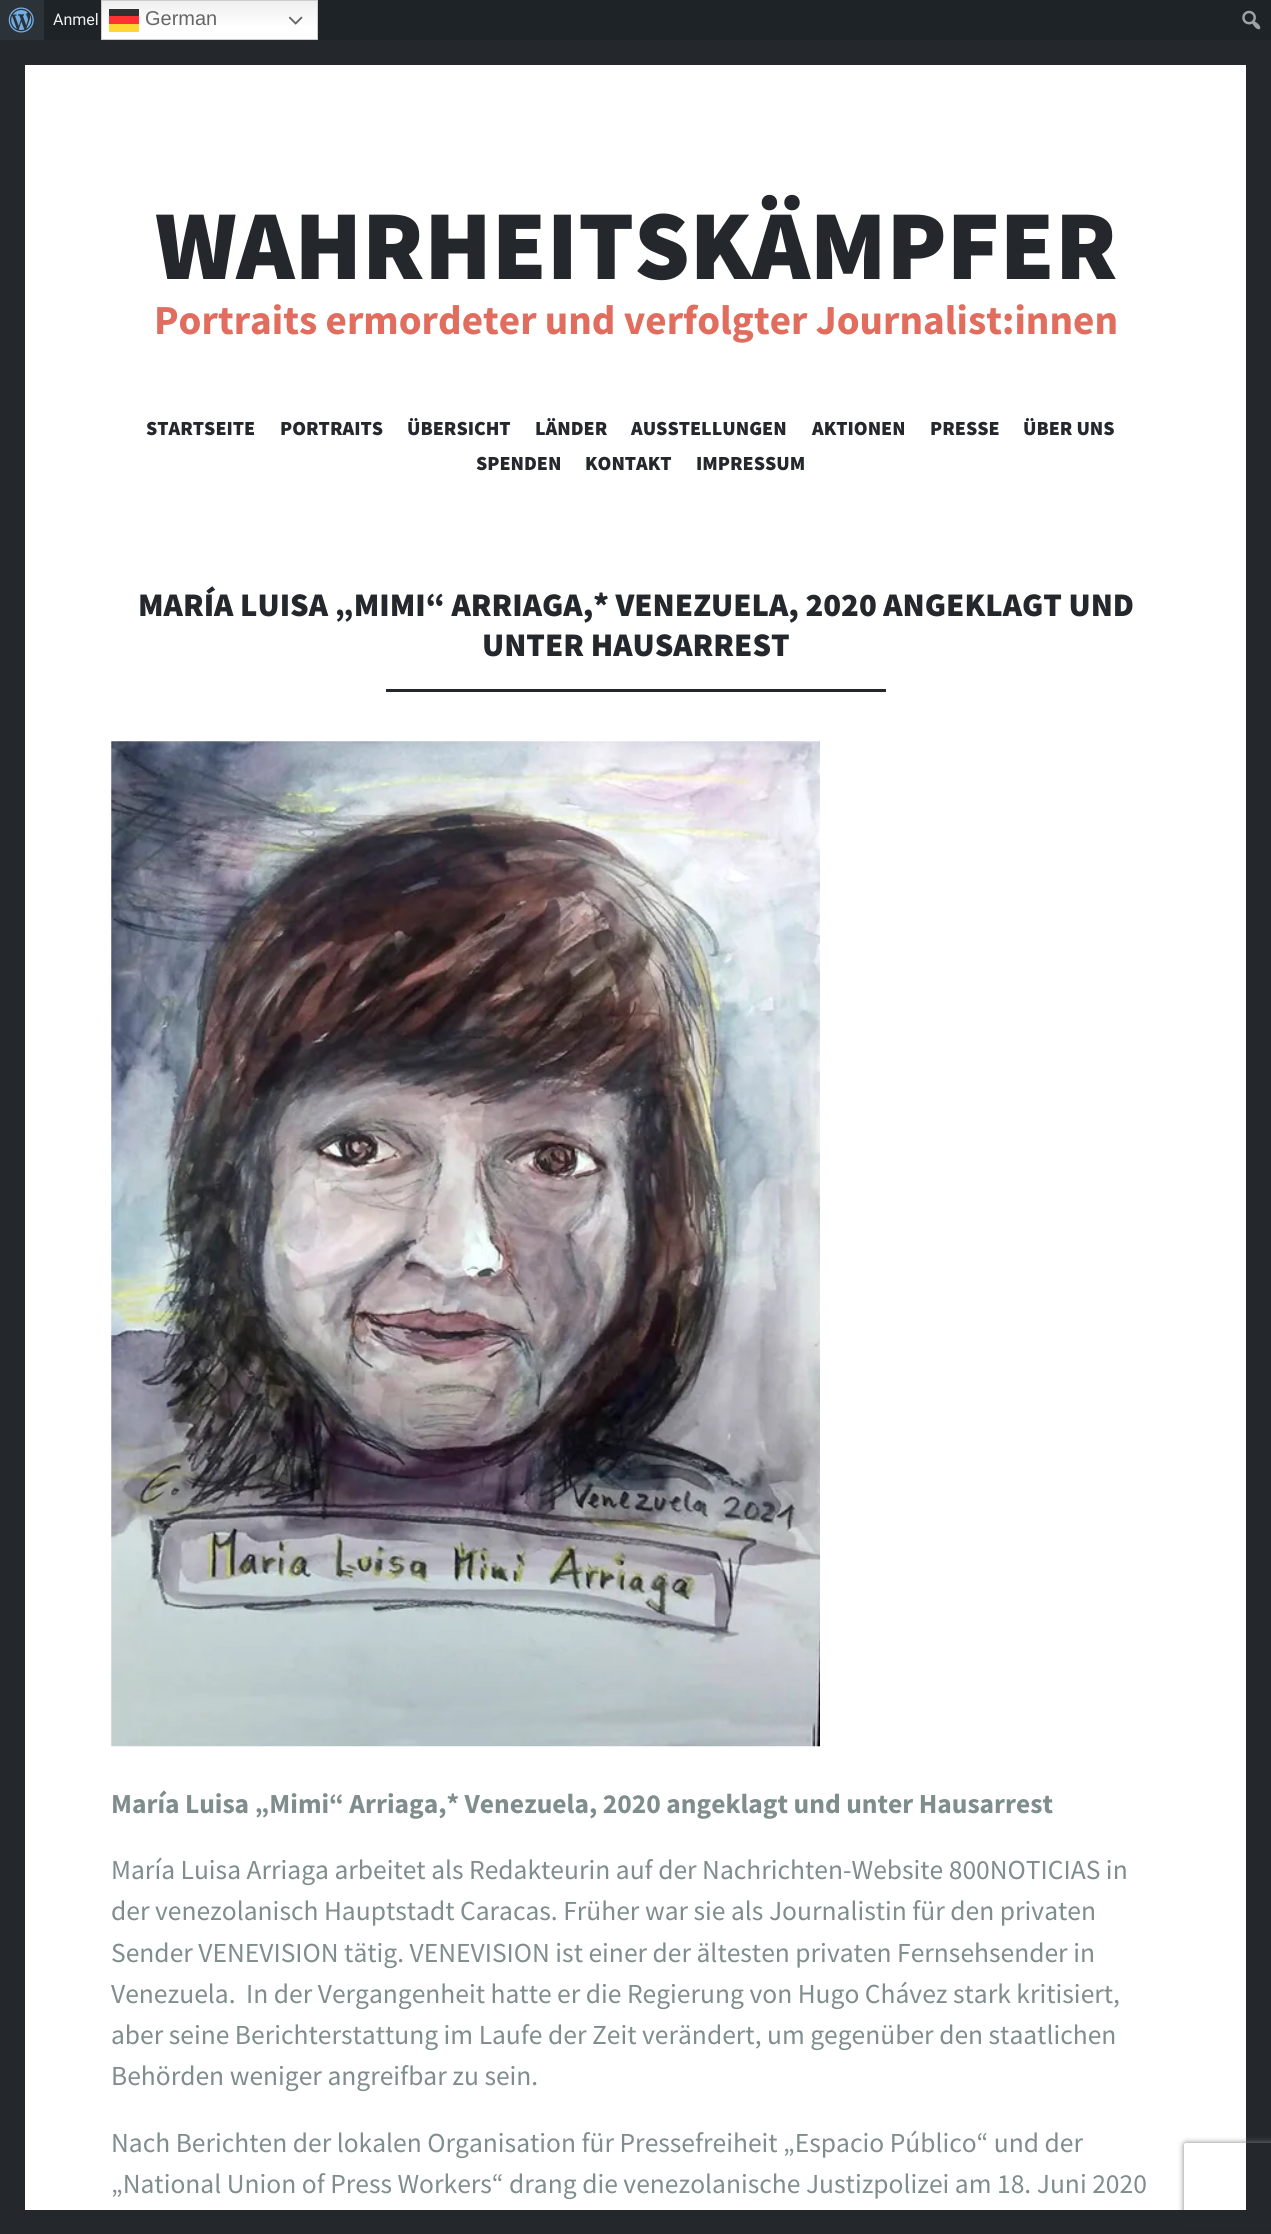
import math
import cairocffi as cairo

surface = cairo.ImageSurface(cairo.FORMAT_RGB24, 1271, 2234)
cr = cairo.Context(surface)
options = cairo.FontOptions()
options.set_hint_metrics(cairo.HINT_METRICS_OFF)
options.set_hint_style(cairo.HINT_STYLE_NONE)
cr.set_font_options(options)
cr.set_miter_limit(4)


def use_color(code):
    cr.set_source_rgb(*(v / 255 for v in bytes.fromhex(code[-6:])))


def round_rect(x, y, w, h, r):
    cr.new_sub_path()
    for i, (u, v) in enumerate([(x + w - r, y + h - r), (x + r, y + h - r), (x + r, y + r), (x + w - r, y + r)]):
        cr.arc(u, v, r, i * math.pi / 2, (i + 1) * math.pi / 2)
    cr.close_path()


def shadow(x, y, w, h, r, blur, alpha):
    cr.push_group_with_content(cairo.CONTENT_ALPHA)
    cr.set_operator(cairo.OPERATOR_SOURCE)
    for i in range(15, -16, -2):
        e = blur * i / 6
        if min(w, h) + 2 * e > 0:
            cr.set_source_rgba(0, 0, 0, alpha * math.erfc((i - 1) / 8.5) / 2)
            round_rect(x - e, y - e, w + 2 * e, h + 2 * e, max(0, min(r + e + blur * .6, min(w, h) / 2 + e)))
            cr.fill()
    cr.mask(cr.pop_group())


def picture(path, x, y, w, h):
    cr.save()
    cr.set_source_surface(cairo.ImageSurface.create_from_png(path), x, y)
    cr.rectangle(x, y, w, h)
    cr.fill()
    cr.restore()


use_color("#24282d")
cr.paint()
use_color("#1d2327")
cr.rectangle(44, 0, 1227, 40)
cr.fill()
use_color("#2c3338")
cr.rectangle(0, 0, 44, 40)
cr.fill()
picture("img1.png", 8, 7, 26, 26)
cr.select_font_face("Roboto")
cr.set_font_size(16)
use_color("#f0f0f1")
cr.move_to(53, 25)
cr.show_text("Anmel")
picture("img2.png", 1242, 10, 19, 20)
gradient = cairo.LinearGradient(209, 0, 209, 40)
gradient.add_color_stop_rgba(0, 0.937, 0.937, 0.937, 1)
gradient.add_color_stop_rgba(0.7, 1, 1, 1, 1)
cr.set_source(gradient)
cr.rectangle(102, 1, 215, 38)
cr.fill()
gradient = cairo.LinearGradient(209, 0, 209, 40)
gradient.add_color_stop_rgba(0, 0.188, 0.188, 0.188, 1)
gradient.add_color_stop_rgba(0.7, 0.2, 0.2, 0.2, 1)
cr.set_source(gradient)
cr.rectangle(109, 9, 30, 7)
cr.fill()
cr.rectangle(101.5, 0.5, 216, 39)
use_color("#cccccc")
cr.set_line_width(1)
cr.stroke()
cr.set_source_rgba(1, 0, 0, 0.8)
cr.rectangle(109, 16, 30, 8)
cr.fill()
cr.select_font_face("Liberation Sans")
cr.set_font_size(20)
use_color("#666666")
cr.move_to(145, 25)
cr.show_text("German")
picture("img3.png", 289, 16, 14, 9)
use_color("#ffd633")
cr.rectangle(109, 24, 30, 8)
cr.fill()
use_color("#ffffff")
cr.rectangle(25, 65, 1221, 2145)
cr.fill()
cr.select_font_face("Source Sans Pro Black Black")
cr.set_font_size(99)
use_color("#24282d")
cr.move_to(155, 279)
cr.show_text("WAHRHEITSKÄMPFER")
cr.select_font_face("Source Sans Pro", cairo.FONT_SLANT_NORMAL, cairo.FONT_WEIGHT_BOLD)
cr.set_font_size(41.25)
use_color("#e06d5e")
cr.move_to(154, 334)
cr.show_text("Portraits ermordeter und verfolgter Journalist:innen")
cr.select_font_face("Source Sans Pro Black Black")
cr.set_font_size(20)
use_color("#24282d")
cr.move_to(146, 435)
cr.show_text("STARTSEITE")
cr.move_to(280, 435)
cr.show_text("PORTRAITS")
cr.move_to(407, 435)
cr.show_text("ÜBERSICHT")
cr.move_to(535, 435)
cr.show_text("LÄNDER")
cr.move_to(631, 435)
cr.show_text("AUSSTELLUNGEN")
cr.move_to(812, 435)
cr.show_text("AKTIONEN")
cr.move_to(930, 435)
cr.show_text("PRESSE")
cr.move_to(1023, 435)
cr.show_text("ÜBER UNS")
cr.move_to(476, 470)
cr.show_text("SPENDEN")
cr.move_to(585, 470)
cr.show_text("KONTAKT")
cr.move_to(696, 470)
cr.show_text("IMPRESSUM")
cr.set_font_size(33)
cr.move_to(138, 616)
cr.show_text("MARÍA LUISA „MIMI“ ARRIAGA,* VENEZUELA, 2020 ANGEKLAGT UND")
cr.move_to(482, 656)
cr.show_text("UNTER HAUSARREST")
cr.rectangle(386, 689, 500, 3)
cr.fill()
picture("img4.png", 111, 741, 709, 1006)
cr.select_font_face("Source Sans Pro", cairo.FONT_SLANT_NORMAL, cairo.FONT_WEIGHT_BOLD)
cr.set_font_size(27.5)
use_color("#7f8d8c")
cr.move_to(111, 1813)
cr.show_text("María Luisa „Mimi“ Arriaga,* Venezuela, 2020 angeklagt und unter Hausarrest")
cr.select_font_face("Source Sans Pro")
cr.move_to(111, 1879)
cr.show_text("María Luisa Arriaga arbeitet als Redakteurin auf der Nachrichten-Website 800NOTICIAS in")
cr.move_to(111, 1920)
cr.show_text("der venezolanisch Hauptstadt Caracas. Früher war sie als Journalistin für den privaten")
cr.move_to(111, 1962)
cr.show_text("Sender VENEVISION tätig. VENEVISION ist einer der ältesten privaten Fernsehsender in")
cr.move_to(111, 2003)
cr.show_text("Venezuela.")
cr.move_to(246, 2003)
cr.show_text("In der Vergangenheit hatte er die Regierung von Hugo Chávez stark kritisiert,")
cr.move_to(111, 2044)
cr.show_text("aber seine Berichterstattung im Laufe der Zeit verändert, um gegenüber den staatlichen")
cr.move_to(111, 2085)
cr.show_text("Behörden weniger angreifbar zu sein.")
cr.move_to(111, 2152)
cr.show_text("Nach Berichten der lokalen Organisation für Pressefreiheit „Espacio Público“ und der")
cr.move_to(111, 2193)
cr.show_text("„National Union of Press Workers“ drang die venezolanische Justizpolizei am 18. Juni 2020")
cr.save()
cr.set_fill_rule(cairo.FILL_RULE_EVEN_ODD)
cr.new_path()
cr.move_to(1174, 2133)
cr.line_to(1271, 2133)
cr.line_to(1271, 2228)
cr.line_to(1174, 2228)
cr.close_path()
cr.move_to(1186.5, 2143)
cr.line_to(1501.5, 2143)
cr.curve_to(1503, 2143, 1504, 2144, 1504, 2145.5)
cr.line_to(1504, 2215.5)
cr.curve_to(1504, 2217, 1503, 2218, 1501.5, 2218)
cr.line_to(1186.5, 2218)
cr.curve_to(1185, 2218, 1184, 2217, 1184, 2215.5)
cr.line_to(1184, 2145.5)
cr.curve_to(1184, 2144, 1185, 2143, 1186.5, 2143)
cr.close_path()
cr.clip()
use_color("#808080")
shadow(1184, 2143, 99, 75, 2.5, 3, 1)
cr.restore()
use_color("#24282d")
cr.rectangle(1178, 2210, 93, 14)
cr.fill()
surface.write_to_png("result.png")
